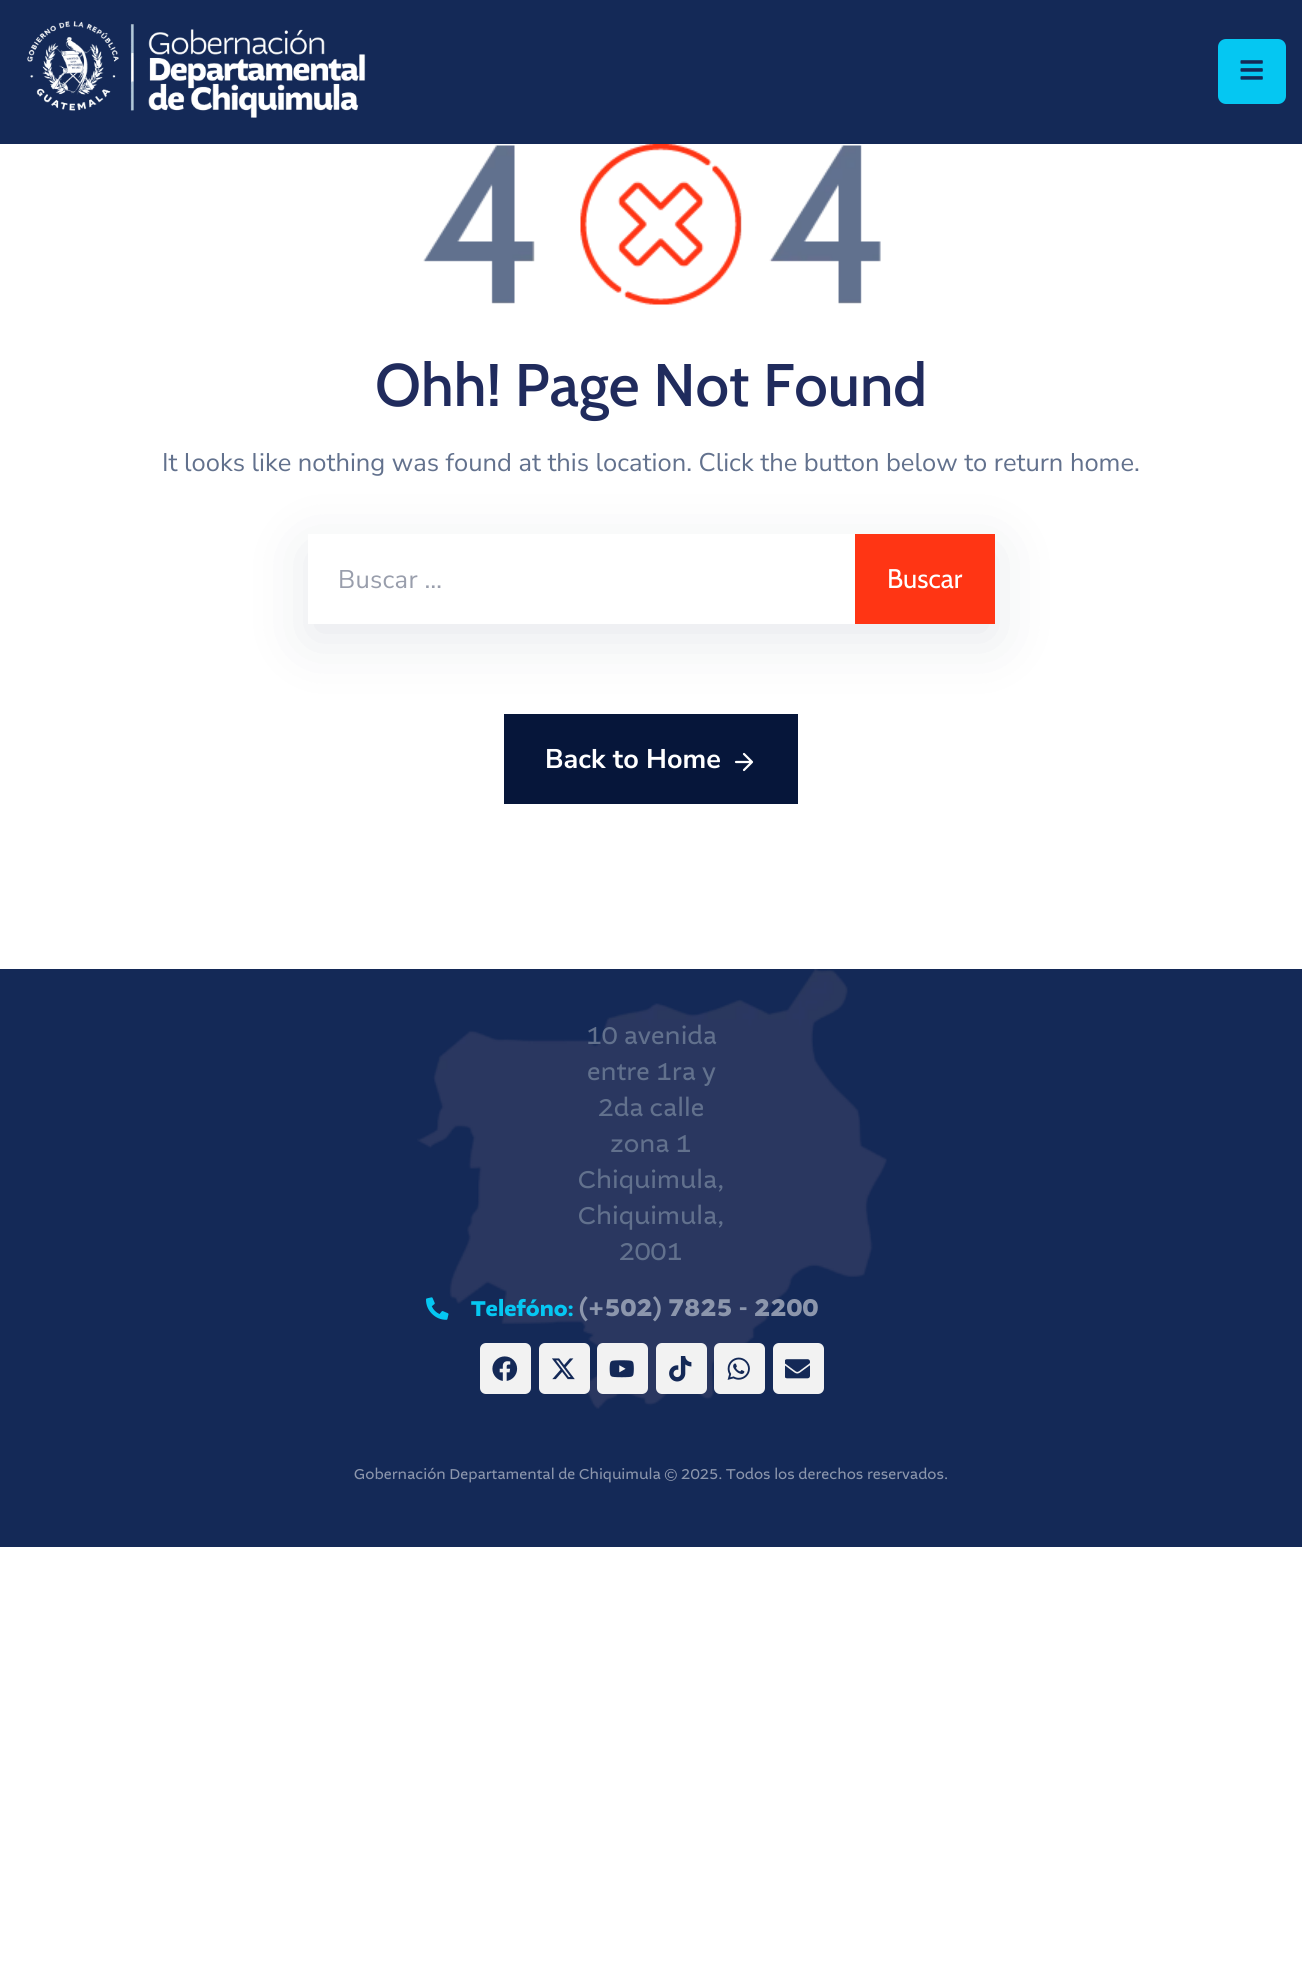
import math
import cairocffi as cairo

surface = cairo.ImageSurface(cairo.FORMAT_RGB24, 1302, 1976)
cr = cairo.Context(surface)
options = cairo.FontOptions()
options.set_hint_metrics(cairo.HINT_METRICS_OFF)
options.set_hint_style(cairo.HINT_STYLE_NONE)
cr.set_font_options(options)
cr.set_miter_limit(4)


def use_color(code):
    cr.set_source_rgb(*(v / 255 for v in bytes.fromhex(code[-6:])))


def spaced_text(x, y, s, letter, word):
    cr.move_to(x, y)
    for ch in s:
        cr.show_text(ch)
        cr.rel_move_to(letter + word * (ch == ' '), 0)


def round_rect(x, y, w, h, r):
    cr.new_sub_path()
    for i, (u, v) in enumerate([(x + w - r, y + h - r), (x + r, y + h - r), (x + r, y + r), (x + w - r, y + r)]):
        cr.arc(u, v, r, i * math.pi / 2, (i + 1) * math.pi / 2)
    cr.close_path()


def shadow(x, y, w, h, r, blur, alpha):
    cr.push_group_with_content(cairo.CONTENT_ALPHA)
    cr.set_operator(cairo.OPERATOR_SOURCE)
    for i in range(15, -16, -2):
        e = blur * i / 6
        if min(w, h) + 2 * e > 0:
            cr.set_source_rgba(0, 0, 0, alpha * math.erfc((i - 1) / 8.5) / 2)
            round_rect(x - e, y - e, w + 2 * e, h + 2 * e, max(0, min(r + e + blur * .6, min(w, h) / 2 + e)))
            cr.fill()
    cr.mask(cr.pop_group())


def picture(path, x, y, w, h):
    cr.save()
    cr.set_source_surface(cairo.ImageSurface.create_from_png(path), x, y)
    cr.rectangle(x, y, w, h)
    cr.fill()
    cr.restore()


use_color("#ffffff")
cr.paint()
use_color("#142957")
cr.rectangle(0, 0, 1302, 144)
cr.fill()
picture("img1.png", 27, 21, 339, 97)
use_color("#05c7f2")
round_rect(1218, 39, 68, 65, 8)
cr.fill()
picture("img2.png", 1240, 60, 23, 20)
picture("img3.png", 423, 144, 458, 161)
cr.select_font_face("Cabin Medium")
cr.set_font_size(60)
use_color("#202b5d")
cr.move_to(375, 406)
cr.show_text("Ohh! Page Not Found")
cr.select_font_face("Nunito Sans")
cr.set_font_size(25.5)
use_color("#62718d")
cr.move_to(162, 471)
cr.show_text("It looks like nothing was found at this location. Click the button below to return home.")
cr.save()
cr.set_fill_rule(cairo.FILL_RULE_EVEN_ODD)
cr.new_path()
cr.move_to(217, 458)
cr.line_to(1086, 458)
cr.line_to(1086, 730)
cr.line_to(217, 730)
cr.close_path()
cr.move_to(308, 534)
cr.line_to(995, 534)
cr.line_to(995, 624)
cr.line_to(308, 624)
cr.close_path()
cr.clip()
use_color("#06163a")
shadow(308, 549, 687, 90, 0, 30, 0.1)
cr.restore()
use_color("#999eac")
spaced_text(338, 588, "Buscar …", 0.25, 0)
use_color("#ff3514")
cr.rectangle(855, 534, 140, 90)
cr.fill()
cr.select_font_face("Cabin")
cr.set_font_size(27)
use_color("#ffffff")
cr.move_to(887, 588)
cr.show_text("Buscar")
use_color("#06163a")
cr.rectangle(504, 714, 294, 90)
cr.fill()
cr.select_font_face("Nunito Sans", cairo.FONT_SLANT_NORMAL, cairo.FONT_WEIGHT_BOLD)
use_color("#ffffff")
cr.move_to(545, 768)
cr.show_text("Back to Home")
cr.new_path()
cr.move_to(736, 762)
cr.line_to(752, 762)
cr.move_to(744, 754)
cr.line_to(752, 762)
cr.line_to(744, 770)
cr.set_line_width(2.2)
cr.set_line_cap(cairo.LINE_CAP_ROUND)
cr.set_line_join(cairo.LINE_JOIN_ROUND)
cr.stroke()
use_color("#142957")
cr.rectangle(0, 969, 1302, 578)
cr.fill()
picture("img4.png", 417, 969, 470, 440)
cr.select_font_face("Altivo")
cr.set_font_size(25.5)
use_color("#62718d")
cr.move_to(586, 1044)
cr.show_text("10 avenida")
cr.move_to(587, 1080)
cr.show_text("entre 1ra y")
cr.move_to(598, 1116)
cr.show_text("2da calle")
cr.move_to(610, 1152)
cr.show_text("zona 1")
cr.move_to(578, 1188)
cr.show_text("Chiquimula,")
cr.move_to(578, 1224)
cr.show_text("Chiquimula,")
cr.move_to(619, 1260)
cr.show_text("2001")
picture("img5.png", 426, 1297, 23, 23)
cr.select_font_face("Altivo", cairo.FONT_SLANT_NORMAL, cairo.FONT_WEIGHT_BOLD)
cr.set_font_size(22.5)
use_color("#05c7f2")
cr.move_to(471, 1316)
cr.show_text("Telefóno:")
cr.set_font_size(25.5)
use_color("#8c96ac")
spaced_text(579, 1316, "(+502) 7825 - 2200", 0.25, 0)
use_color("#f2f2f2")
round_rect(480, 1343, 51, 51, 6)
cr.fill()
picture("img6.png", 492, 1356, 26, 25)
round_rect(539, 1343, 51, 51, 6)
cr.fill()
picture("img7.png", 552, 1358, 23, 22)
round_rect(597, 1343, 51, 51, 6)
cr.fill()
picture("img8.png", 609, 1360, 25, 18)
round_rect(656, 1343, 51, 51, 6)
cr.fill()
picture("img9.png", 669, 1356, 23, 26)
round_rect(714, 1343, 51, 51, 6)
cr.fill()
picture("img10.png", 727, 1357, 23, 23)
round_rect(773, 1343, 51, 51, 6)
cr.fill()
picture("img11.png", 785, 1359, 25, 20)
cr.select_font_face("Altivo")
cr.set_font_size(15)
use_color("#8c96ac")
cr.move_to(354, 1479)
cr.show_text("Gobernación Departamental de Chiquimula © 2025. Todos los derechos reservados.")
surface.write_to_png("result.png")
